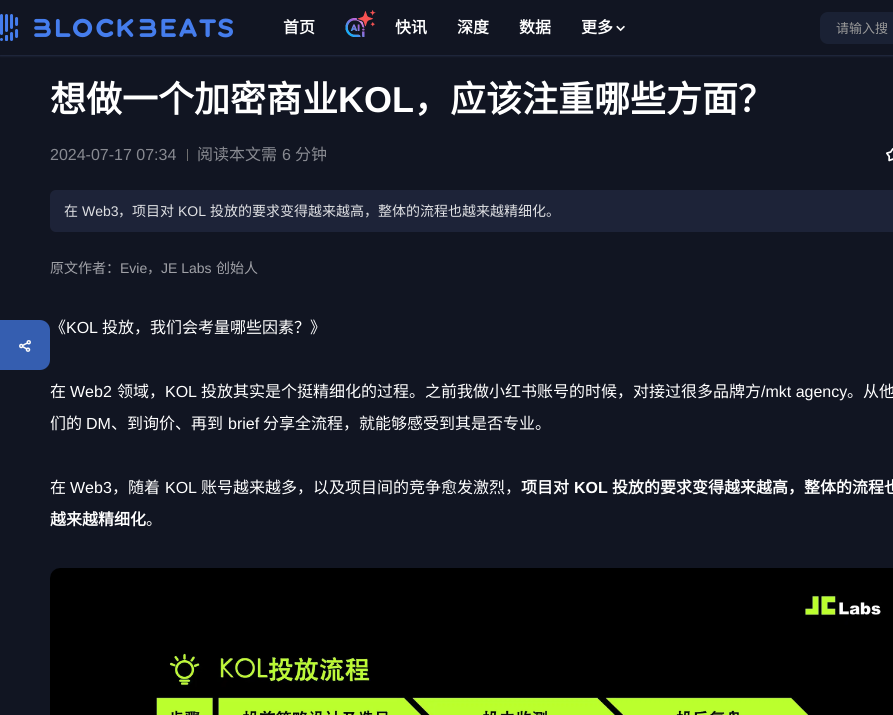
import math
import cairocffi as cairo

surface = cairo.ImageSurface(cairo.FORMAT_RGB24, 893, 715)
cr = cairo.Context(surface)
options = cairo.FontOptions()
options.set_hint_metrics(cairo.HINT_METRICS_OFF)
options.set_hint_style(cairo.HINT_STYLE_NONE)
cr.set_font_options(options)
cr.set_miter_limit(4)


def use_color(code):
    cr.set_source_rgb(*(v / 255 for v in bytes.fromhex(code[-6:])))


def round_rect(x, y, w, h, r):
    cr.new_sub_path()
    for i, (u, v) in enumerate([(x + w - r, y + h - r), (x + r, y + h - r), (x + r, y + r), (x + w - r, y + r)]):
        cr.arc(u, v, r, i * math.pi / 2, (i + 1) * math.pi / 2)
    cr.close_path()


def shadow(x, y, w, h, r, blur, alpha):
    cr.push_group_with_content(cairo.CONTENT_ALPHA)
    cr.set_operator(cairo.OPERATOR_SOURCE)
    for i in range(15, -16, -2):
        e = blur * i / 6
        if min(w, h) + 2 * e > 0:
            cr.set_source_rgba(0, 0, 0, alpha * math.erfc((i - 1) / 8.5) / 2)
            round_rect(x - e, y - e, w + 2 * e, h + 2 * e, max(0, min(r + e + blur * .6, min(w, h) / 2 + e)))
            cr.fill()
    cr.mask(cr.pop_group())


def picture(path, x, y, w, h):
    cr.save()
    cr.set_source_surface(cairo.ImageSurface.create_from_png(path), x, y)
    cr.rectangle(x, y, w, h)
    cr.fill()
    cr.restore()


use_color("#111522")
cr.paint()
cr.save()
cr.rectangle(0, 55, 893, 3)
cr.clip()
use_color("#232c44")
shadow(0, 1, 893, 55, 0, 1, 1)
cr.restore()
picture("img1.png", 0, 14, 233, 27)
cr.select_font_face("Noto Sans CJK SC", cairo.FONT_SLANT_NORMAL, cairo.FONT_WEIGHT_BOLD)
cr.set_font_size(16)
use_color("#ffffff")
cr.move_to(283, 33)
cr.show_text("首页")
picture("img2.png", 345, 18, 20, 19)
picture("img3.png", 356, 10, 20, 18)
cr.move_to(395, 33)
cr.show_text("快讯")
cr.move_to(457, 33)
cr.show_text("深度")
cr.move_to(519, 33)
cr.show_text("数据")
cr.move_to(581, 33)
cr.show_text("更多")
picture("img4.png", 616, 25, 9, 7)
use_color("#1a2134")
round_rect(820, 12, 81, 32, 8)
cr.fill()
cr.select_font_face("Noto Sans CJK SC")
cr.set_font_size(13)
use_color("#999999")
cr.move_to(836, 33)
cr.show_text("请输入搜")
use_color("#355eb0")
cr.new_path()
cr.move_to(0, 320)
cr.line_to(40, 320)
cr.curve_to(45.5, 320, 50, 324.5, 50, 330)
cr.line_to(50, 360)
cr.curve_to(50, 365.5, 45.5, 370, 40, 370)
cr.line_to(0, 370)
cr.close_path()
cr.fill()
picture("img5.png", 19, 340, 12, 12)
cr.select_font_face("Noto Sans CJK SC", cairo.FONT_SLANT_NORMAL, cairo.FONT_WEIGHT_BOLD)
cr.set_font_size(36)
use_color("#ffffff")
cr.move_to(50, 112)
cr.show_text("想做一个加密商业")
cr.select_font_face("Liberation Sans", cairo.FONT_SLANT_NORMAL, cairo.FONT_WEIGHT_BOLD)
cr.move_to(338, 112)
cr.show_text("KOL")
cr.select_font_face("Noto Sans CJK SC", cairo.FONT_SLANT_NORMAL, cairo.FONT_WEIGHT_BOLD)
cr.move_to(414, 112)
cr.show_text("，应该注重哪些方面？")
cr.select_font_face("Liberation Sans")
cr.set_font_size(16)
use_color("#888a91")
cr.move_to(50, 160)
cr.show_text("2024-07-17 07:34")
use_color("#707070")
cr.rectangle(187, 149, 1, 12)
cr.fill()
cr.select_font_face("Noto Sans CJK SC")
use_color("#888a91")
cr.move_to(197, 160)
cr.show_text("阅读本文需")
cr.select_font_face("Liberation Sans")
cr.move_to(282, 160)
cr.show_text("6")
cr.select_font_face("Noto Sans CJK SC")
cr.move_to(295, 160)
cr.show_text("分钟")
picture("img6.png", 886, 148, 7, 14)
use_color("#1d2338")
round_rect(50, 190, 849, 42, 6)
cr.fill()
cr.set_font_size(14)
use_color("#dfe0e3")
cr.move_to(64, 216)
cr.show_text("在")
cr.select_font_face("Liberation Sans")
cr.move_to(82, 216)
cr.show_text("Web3")
cr.select_font_face("Noto Sans CJK SC")
cr.move_to(118, 216)
cr.show_text("，项目对")
cr.select_font_face("Liberation Sans")
cr.move_to(178, 216)
cr.show_text("KOL")
cr.select_font_face("Noto Sans CJK SC")
cr.move_to(210, 216)
cr.show_text("投放的要求变得越来越高，整体的流程也越来越精细化。")
use_color("#a0a1a7")
cr.move_to(50, 273)
cr.show_text("原文作者：")
cr.select_font_face("Liberation Sans")
cr.move_to(120, 273)
cr.show_text("Evie")
cr.select_font_face("Noto Sans CJK SC")
cr.move_to(147, 273)
cr.show_text("，")
cr.select_font_face("Liberation Sans")
cr.move_to(161, 273)
cr.show_text("JE Labs")
cr.select_font_face("Noto Sans CJK SC")
cr.move_to(216, 273)
cr.show_text("创始人")
cr.set_font_size(16)
use_color("#ffffff")
cr.move_to(50, 333)
cr.show_text("《")
cr.select_font_face("Liberation Sans")
cr.move_to(66, 333)
cr.show_text("KOL")
cr.select_font_face("Noto Sans CJK SC")
cr.move_to(102, 333)
cr.show_text("投放，我们会考量哪些因素？》")
cr.move_to(50, 397)
cr.show_text("在")
cr.select_font_face("Liberation Sans")
cr.move_to(70, 397)
cr.show_text("Web2")
cr.select_font_face("Noto Sans CJK SC")
cr.move_to(117, 397)
cr.show_text("领域，")
cr.select_font_face("Liberation Sans")
cr.move_to(165, 397)
cr.show_text("KOL")
cr.select_font_face("Noto Sans CJK SC")
cr.move_to(201, 397)
cr.show_text("投放其实是个挺精细化的过程。之前我做小红书账号的时候，对接过很多品牌方")
cr.select_font_face("Liberation Sans")
cr.move_to(761, 397)
cr.show_text("/mkt agency")
cr.select_font_face("Noto Sans CJK SC")
cr.move_to(847, 397)
cr.show_text("。从他")
cr.move_to(50, 429)
cr.show_text("们的")
cr.select_font_face("Liberation Sans")
cr.move_to(86, 429)
cr.show_text("DM")
cr.select_font_face("Noto Sans CJK SC")
cr.move_to(111, 429)
cr.show_text("、到询价、再到")
cr.select_font_face("Liberation Sans")
cr.move_to(228, 429)
cr.show_text("brief")
cr.select_font_face("Noto Sans CJK SC")
cr.move_to(263, 429)
cr.show_text("分享全流程，就能够感受到其是否专业。")
cr.move_to(50, 493)
cr.show_text("在")
cr.select_font_face("Liberation Sans")
cr.move_to(70, 493)
cr.show_text("Web3")
cr.select_font_face("Noto Sans CJK SC")
cr.move_to(112, 493)
cr.show_text("，随着")
cr.select_font_face("Liberation Sans")
cr.move_to(165, 493)
cr.show_text("KOL")
cr.select_font_face("Noto Sans CJK SC")
cr.move_to(201, 493)
cr.show_text("账号越来越多，以及项目间的竞争愈发激烈，")
cr.select_font_face("Noto Sans CJK SC", cairo.FONT_SLANT_NORMAL, cairo.FONT_WEIGHT_BOLD)
cr.move_to(521, 493)
cr.show_text("项目对")
cr.select_font_face("Liberation Sans", cairo.FONT_SLANT_NORMAL, cairo.FONT_WEIGHT_BOLD)
cr.move_to(574, 493)
cr.show_text("KOL")
cr.select_font_face("Noto Sans CJK SC", cairo.FONT_SLANT_NORMAL, cairo.FONT_WEIGHT_BOLD)
cr.move_to(612, 493)
cr.show_text("投放的要求变得越来越高，整体的流程也")
cr.move_to(50, 525)
cr.show_text("越来越精细化")
cr.select_font_face("Noto Sans CJK SC")
cr.move_to(146, 525)
cr.show_text("。")
picture("img7.png", 50, 568, 843, 147)
surface.write_to_png("result.png")
